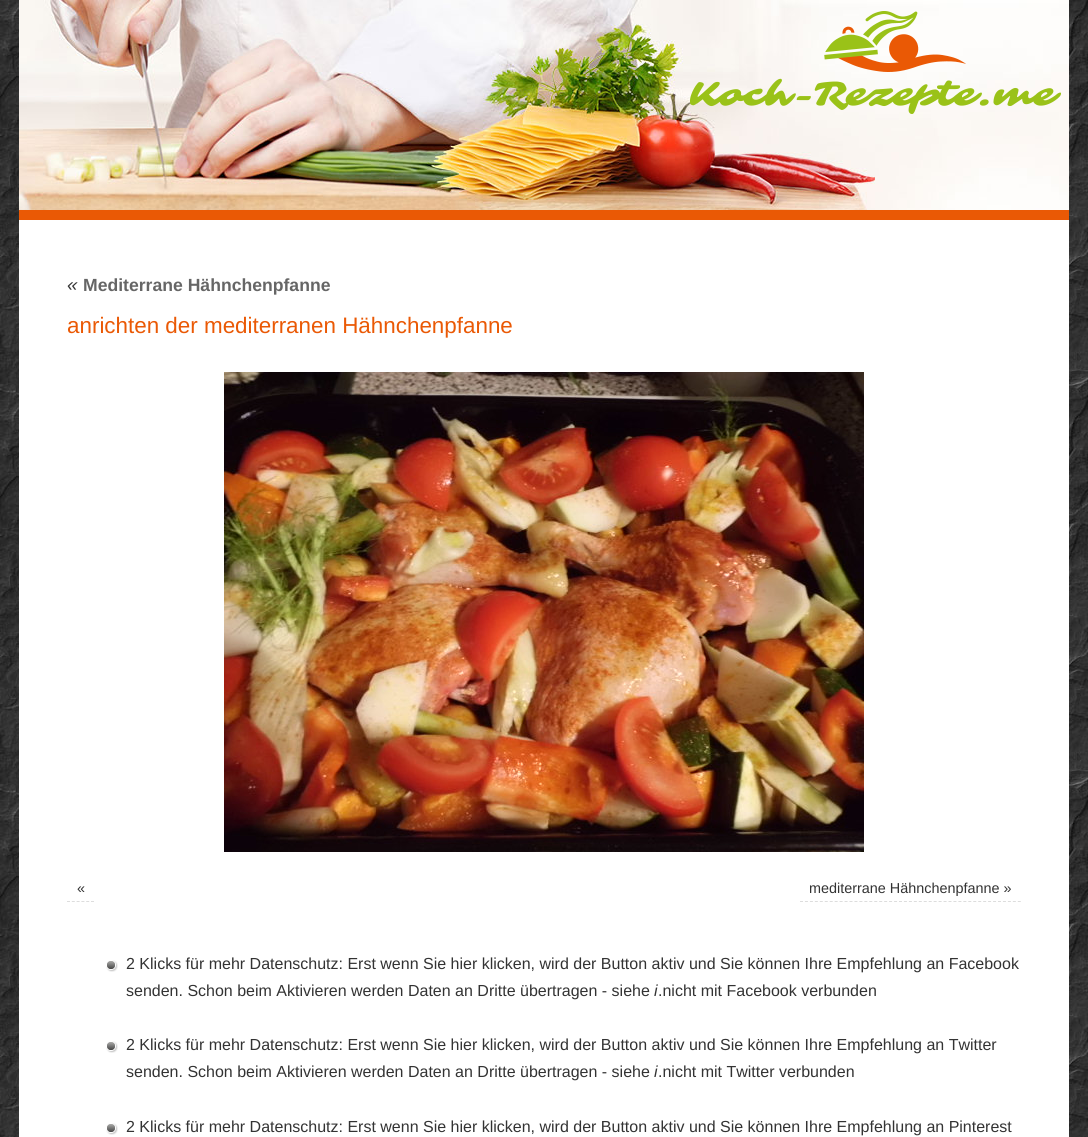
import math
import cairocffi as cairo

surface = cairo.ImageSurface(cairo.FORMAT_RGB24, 1088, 1137)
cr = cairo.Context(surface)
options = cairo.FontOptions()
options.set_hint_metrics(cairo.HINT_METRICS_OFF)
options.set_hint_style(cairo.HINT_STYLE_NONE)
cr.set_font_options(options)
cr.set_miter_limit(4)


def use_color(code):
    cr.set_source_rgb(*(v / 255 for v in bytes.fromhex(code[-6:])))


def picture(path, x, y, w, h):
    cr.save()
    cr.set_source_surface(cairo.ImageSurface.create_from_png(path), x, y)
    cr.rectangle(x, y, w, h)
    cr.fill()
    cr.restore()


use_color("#ffffff")
cr.paint()
picture("img1.png", 0, 0, 1088, 1137)
use_color("#ea5905")
cr.rectangle(19, 210, 1050, 10)
cr.fill()
picture("img2.png", 19, 0, 1050, 210)
picture("img3.png", 690, 11, 371, 103)
use_color("#ffffff")
cr.rectangle(19, 220, 1050, 917)
cr.fill()
cr.select_font_face("Liberation Sans", cairo.FONT_SLANT_ITALIC)
cr.set_font_size(19)
use_color("#333333")
cr.move_to(67, 291)
cr.show_text("«")
cr.select_font_face("Liberation Sans", cairo.FONT_SLANT_NORMAL, cairo.FONT_WEIGHT_BOLD)
cr.set_font_size(17.6)
use_color("#666666")
cr.move_to(83, 291)
cr.show_text("Mediterrane Hähnchenpfanne")
cr.select_font_face("Liberation Sans")
cr.set_font_size(22.4)
use_color("#ea5905")
cr.move_to(67, 333)
cr.show_text("anrichten der mediterranen Hähnchenpfanne")
picture("img4.png", 224, 372, 640, 480)
cr.new_path()
cr.move_to(67, 901.5)
cr.line_to(94, 901.5)
use_color("#dddddd")
cr.set_line_width(1)
cr.set_dash([3, 1.8])
cr.stroke()
cr.set_font_size(14.4)
use_color("#333333")
cr.move_to(77, 893)
cr.show_text("«")
cr.new_path()
cr.move_to(800, 901.5)
cr.line_to(1021, 901.5)
use_color("#dddddd")
cr.set_dash([3, 1.95])
cr.stroke()
use_color("#333333")
cr.move_to(809, 893)
cr.show_text("mediterrane Hähnchenpfanne »")
picture("img5.png", 106, 960, 12, 12)
cr.set_font_size(16)
cr.move_to(126, 969)
cr.show_text("2 Klicks für mehr Datenschutz: Erst wenn Sie hier klicken, wird der Button aktiv und Sie können Ihre Empfehlung an Facebook")
cr.move_to(126, 996)
cr.show_text("senden. Schon beim Aktivieren werden Daten an Dritte übertragen - siehe")
cr.select_font_face("Liberation Sans", cairo.FONT_SLANT_ITALIC)
cr.move_to(654, 996)
cr.show_text("i")
cr.select_font_face("Liberation Sans")
cr.move_to(658, 996)
cr.show_text(".nicht mit Facebook verbunden")
picture("img5.png", 106, 1041, 12, 12)
cr.move_to(126, 1050)
cr.show_text("2 Klicks für mehr Datenschutz: Erst wenn Sie hier klicken, wird der Button aktiv und Sie können Ihre Empfehlung an Twitter")
cr.move_to(126, 1077)
cr.show_text("senden. Schon beim Aktivieren werden Daten an Dritte übertragen - siehe")
cr.select_font_face("Liberation Sans", cairo.FONT_SLANT_ITALIC)
cr.move_to(654, 1077)
cr.show_text("i")
cr.select_font_face("Liberation Sans")
cr.move_to(658, 1077)
cr.show_text(".nicht mit Twitter verbunden")
picture("img5.png", 106, 1123, 12, 12)
cr.move_to(126, 1132)
cr.show_text("2 Klicks für mehr Datenschutz: Erst wenn Sie hier klicken, wird der Button aktiv und Sie können Ihre Empfehlung an Pinterest")
surface.write_to_png("result.png")
